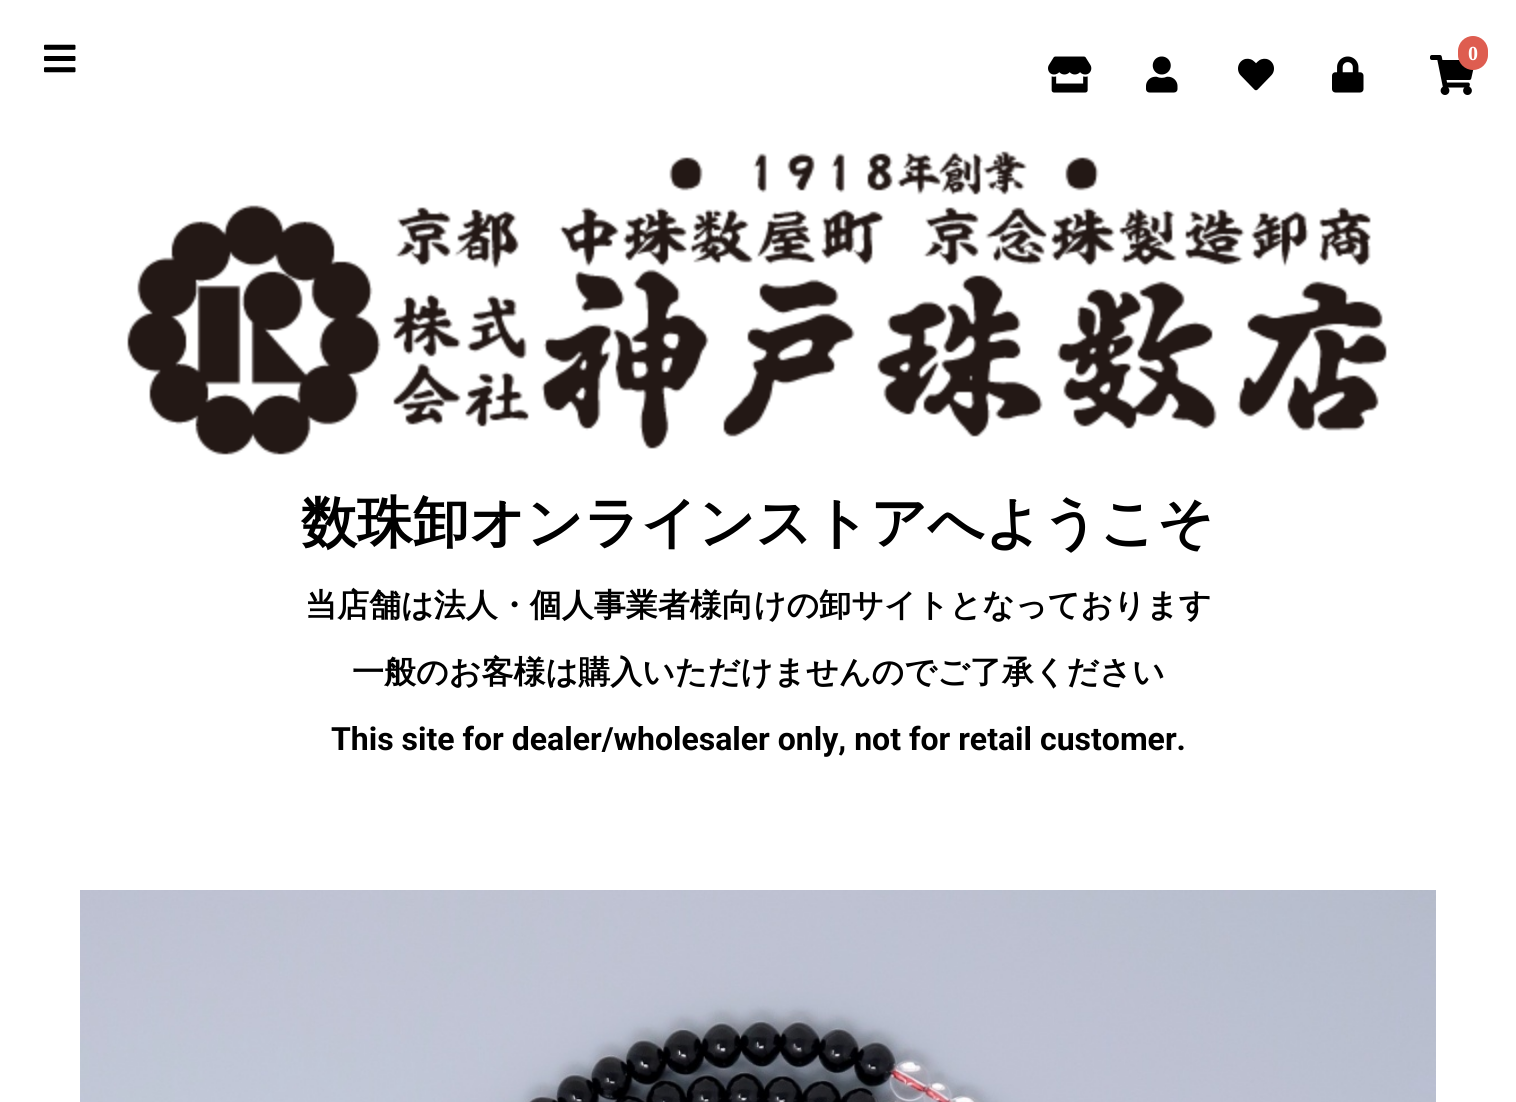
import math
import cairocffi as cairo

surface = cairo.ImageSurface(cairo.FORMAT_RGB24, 1516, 1102)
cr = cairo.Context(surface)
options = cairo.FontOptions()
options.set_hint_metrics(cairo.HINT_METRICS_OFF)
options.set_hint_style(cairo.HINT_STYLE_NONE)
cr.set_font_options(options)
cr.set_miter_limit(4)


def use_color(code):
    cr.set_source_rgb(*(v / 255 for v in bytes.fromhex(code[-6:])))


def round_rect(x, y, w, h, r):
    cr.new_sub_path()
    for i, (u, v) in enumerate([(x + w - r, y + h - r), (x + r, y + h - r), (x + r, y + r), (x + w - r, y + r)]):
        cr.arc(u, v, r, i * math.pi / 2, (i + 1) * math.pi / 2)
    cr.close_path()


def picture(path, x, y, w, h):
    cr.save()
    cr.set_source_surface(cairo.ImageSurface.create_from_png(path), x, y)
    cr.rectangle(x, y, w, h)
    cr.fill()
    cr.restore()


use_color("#ffffff")
cr.paint()
picture("img1.png", 44, 44, 32, 29)
picture("img2.png", 1430, 55, 44, 40)
use_color("#de5d50")
round_rect(1458, 36, 30, 34, 15)
cr.fill()
cr.select_font_face("Liberation Serif", cairo.FONT_SLANT_NORMAL, cairo.FONT_WEIGHT_BOLD)
cr.set_font_size(20)
use_color("#ffffff")
cr.move_to(1468, 60)
cr.show_text("0")
picture("img3.png", 1048, 56, 44, 37)
picture("img4.png", 1146, 56, 32, 37)
picture("img5.png", 1238, 58, 36, 33)
picture("img6.png", 1332, 56, 32, 37)
picture("img7.png", 127, 151, 1260, 304)
cr.select_font_face("WenQuanYi Zen Hei", cairo.FONT_SLANT_NORMAL, cairo.FONT_WEIGHT_BOLD)
cr.set_font_size(56)
use_color("#000000")
cr.move_to(301, 542)
cr.show_text("数珠卸オンラインストアへようこそ")
cr.set_font_size(32)
cr.move_to(305, 616)
cr.show_text("当店舗は法人・個人事業者様向けの卸サイトとなっております")
cr.move_to(352, 683)
cr.show_text("一般のお客様は購入いただけませんのでご了承ください")
cr.select_font_face("Roboto", cairo.FONT_SLANT_NORMAL, cairo.FONT_WEIGHT_BOLD)
cr.move_to(331, 750)
cr.show_text("This site for dealer/wholesaler only, not for retail customer.")
picture("img8.png", 80, 890, 1356, 212)
surface.write_to_png("result.png")
